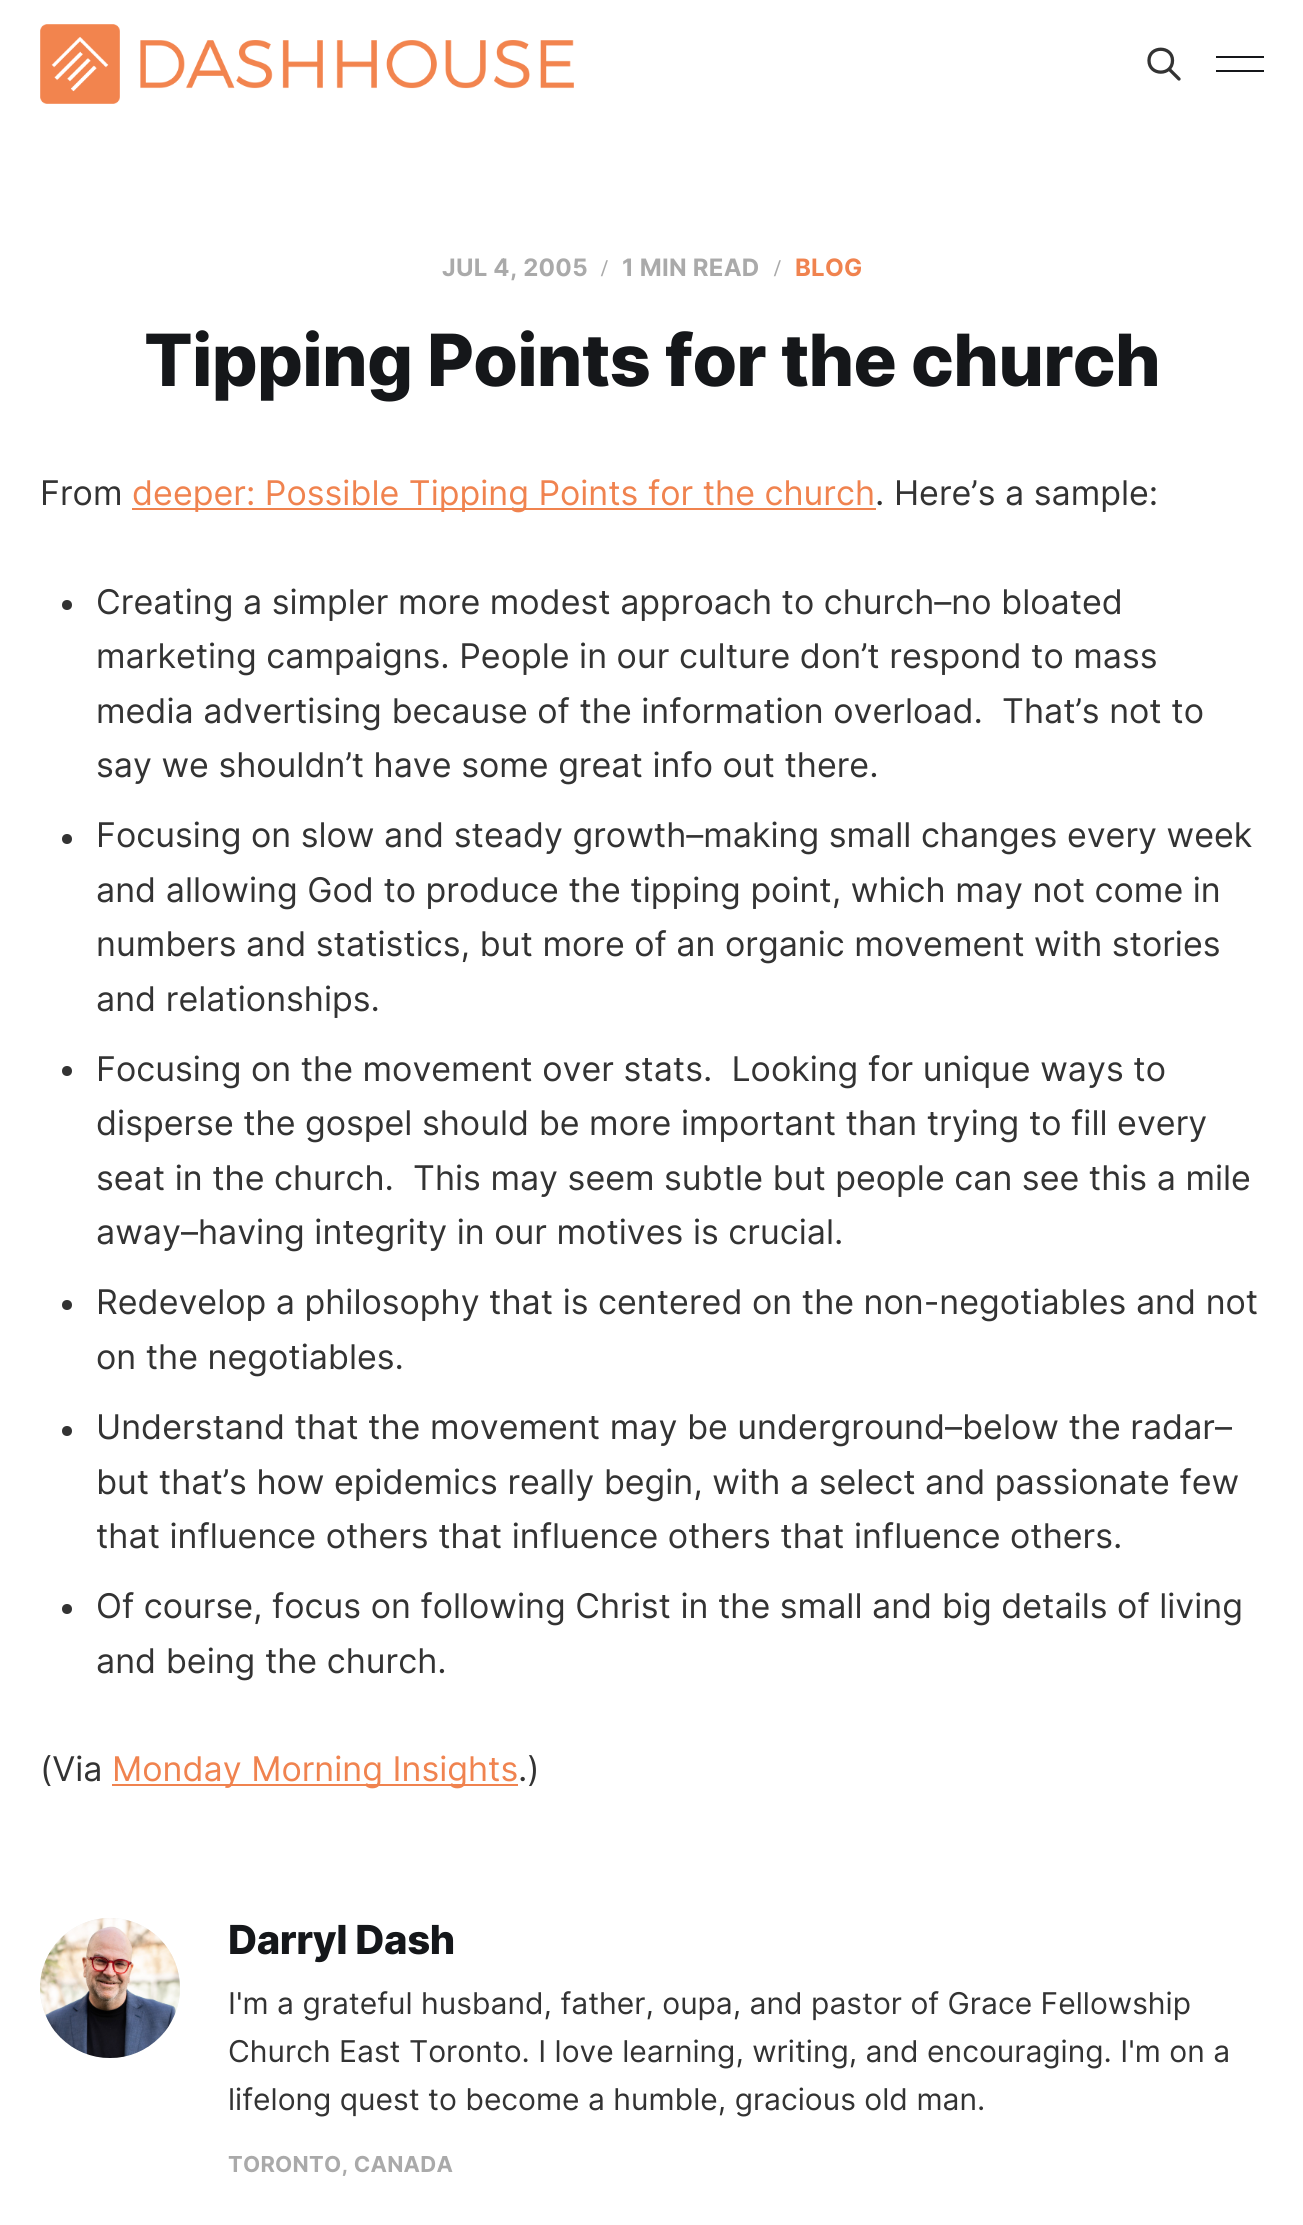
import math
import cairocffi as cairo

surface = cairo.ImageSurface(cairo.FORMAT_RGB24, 1303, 2225)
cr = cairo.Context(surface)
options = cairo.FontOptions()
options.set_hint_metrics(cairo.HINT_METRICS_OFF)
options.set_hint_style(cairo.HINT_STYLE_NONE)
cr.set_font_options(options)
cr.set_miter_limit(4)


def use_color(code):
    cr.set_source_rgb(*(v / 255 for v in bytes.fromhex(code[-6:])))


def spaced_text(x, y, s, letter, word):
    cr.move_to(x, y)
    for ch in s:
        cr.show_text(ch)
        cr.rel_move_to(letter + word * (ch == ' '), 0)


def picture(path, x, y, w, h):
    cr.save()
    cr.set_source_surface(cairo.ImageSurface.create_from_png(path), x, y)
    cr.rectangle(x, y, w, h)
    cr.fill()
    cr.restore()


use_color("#ffffff")
cr.paint()
picture("img1.png", 40, 24, 534, 80)
cr.new_path()
cr.move_to(1179, 79)
cr.line_to(1169, 69)
cr.move_to(1172.5, 60.5)
cr.curve_to(1172.5, 76, 1149, 76, 1149, 60.5)
cr.curve_to(1149, 45.5, 1172.5, 45.5, 1172.5, 60.5)
cr.close_path()
use_color("#333333")
cr.set_line_width(3.3)
cr.set_line_cap(cairo.LINE_CAP_ROUND)
cr.set_line_join(cairo.LINE_JOIN_ROUND)
cr.stroke()
use_color("#15171a")
cr.rectangle(1216, 56, 48, 2)
cr.fill()
cr.rectangle(1216, 70, 48, 2)
cr.fill()
cr.select_font_face("Inter", cairo.FONT_SLANT_NORMAL, cairo.FONT_WEIGHT_BOLD)
cr.set_font_size(24)
use_color("#aaaaaa")
spaced_text(442, 276, "JUL 4, 2005", 0.25, 0)
cr.select_font_face("Liberation Serif", cairo.FONT_SLANT_NORMAL, cairo.FONT_WEIGHT_BOLD)
spaced_text(601, 276, "/", 0.25, 0)
cr.select_font_face("Inter", cairo.FONT_SLANT_NORMAL, cairo.FONT_WEIGHT_BOLD)
spaced_text(622, 276, "1 MIN READ", 0.25, 0)
cr.select_font_face("Liberation Serif", cairo.FONT_SLANT_NORMAL, cairo.FONT_WEIGHT_BOLD)
spaced_text(774, 276, "/", 0.25, 0)
cr.select_font_face("Inter", cairo.FONT_SLANT_NORMAL, cairo.FONT_WEIGHT_BOLD)
use_color("#f0834f")
spaced_text(795, 276, "BLOG", 0.25, 0)
cr.select_font_face("Inter ExtraBold")
cr.set_font_size(72)
use_color("#15171a")
spaced_text(144, 386, "Tipping Points for the church", -0.75, 0)
cr.select_font_face("Inter")
cr.set_font_size(34)
use_color("#333333")
cr.move_to(40, 505)
cr.show_text("From")
use_color("#f0834f")
cr.rectangle(132, 508, 744, 2)
cr.fill()
cr.move_to(132, 505)
cr.show_text("deeper: Possible Tipping Points for the church")
use_color("#333333")
cr.move_to(875, 505)
cr.show_text(". Here’s a sample:")
cr.new_path()
cr.arc(67, 605, 5, 0, 2 * math.pi)
cr.fill()
cr.move_to(96, 614)
cr.show_text("Creating a simpler more modest approach to church–no bloated")
cr.move_to(96, 668)
cr.show_text("marketing campaigns. People in our culture don’t respond to mass")
cr.move_to(96, 723)
cr.show_text("media advertising because of the information overload.  That’s not to")
cr.move_to(96, 777)
cr.show_text("say we shouldn’t have some great info out there.")
cr.new_path()
cr.arc(67, 839, 5, 0, 2 * math.pi)
cr.fill()
cr.move_to(96, 847)
cr.show_text("Focusing on slow and steady growth–making small changes every week")
cr.move_to(96, 902)
cr.show_text("and allowing God to produce the tipping point, which may not come in")
cr.move_to(96, 956)
cr.show_text("numbers and statistics, but more of an organic movement with stories")
cr.move_to(96, 1011)
cr.show_text("and relationships.")
cr.new_path()
cr.arc(67, 1071, 5, 0, 2 * math.pi)
cr.fill()
cr.move_to(96, 1081)
cr.show_text("Focusing on the movement over stats.  Looking for unique ways to")
cr.move_to(96, 1135)
cr.show_text("disperse the gospel should be more important than trying to fill every")
cr.move_to(96, 1190)
cr.show_text("seat in the church.  This may seem subtle but people can see this a mile")
cr.move_to(96, 1244)
cr.show_text("away–having integrity in our motives is crucial.")
cr.new_path()
cr.arc(67, 1305, 5, 0, 2 * math.pi)
cr.fill()
cr.move_to(96, 1314)
cr.show_text("Redevelop a philosophy that is centered on the non-negotiables and not")
cr.move_to(96, 1369)
cr.show_text("on the negotiables.")
cr.new_path()
cr.arc(67, 1431, 5, 0, 2 * math.pi)
cr.fill()
cr.move_to(96, 1439)
cr.show_text("Understand that the movement may be underground–below the radar–")
cr.move_to(96, 1494)
cr.show_text("but that’s how epidemics really begin, with a select and passionate few")
cr.move_to(96, 1548)
cr.show_text("that influence others that influence others that influence others.")
cr.new_path()
cr.arc(67, 1609, 5, 0, 2 * math.pi)
cr.fill()
cr.move_to(96, 1618)
cr.show_text("Of course, focus on following Christ in the small and big details of living")
cr.move_to(96, 1673)
cr.show_text("and being the church.")
cr.move_to(40, 1781)
cr.show_text("(Via")
use_color("#f0834f")
cr.rectangle(112, 1784, 406, 2)
cr.fill()
cr.move_to(112, 1781)
cr.show_text("Monday Morning Insights")
use_color("#333333")
cr.move_to(518, 1781)
cr.show_text(".)")
use_color("#f1f1f1")
cr.new_path()
cr.arc(110, 1988, 70, 0, 2 * math.pi)
cr.fill()
picture("img2.png", 40, 1918, 140, 140)
cr.select_font_face("Inter ExtraBold")
cr.set_font_size(40)
use_color("#15171a")
spaced_text(228, 1954, "Darryl Dash", -0.4, 0)
cr.select_font_face("Inter")
cr.set_font_size(30)
use_color("#333333")
cr.move_to(228, 2014)
cr.show_text("I'm a grateful husband, father, oupa, and pastor of Grace Fellowship")
cr.move_to(228, 2062)
cr.show_text("Church East Toronto. I love learning, writing, and encouraging. I'm on a")
cr.move_to(228, 2110)
cr.show_text("lifelong quest to become a humble, gracious old man.")
cr.select_font_face("Inter", cairo.FONT_SLANT_NORMAL, cairo.FONT_WEIGHT_BOLD)
cr.set_font_size(22)
use_color("#aaaaaa")
spaced_text(228, 2172, "TORONTO, CANADA", 0.25, 0)
surface.write_to_png("result.png")
